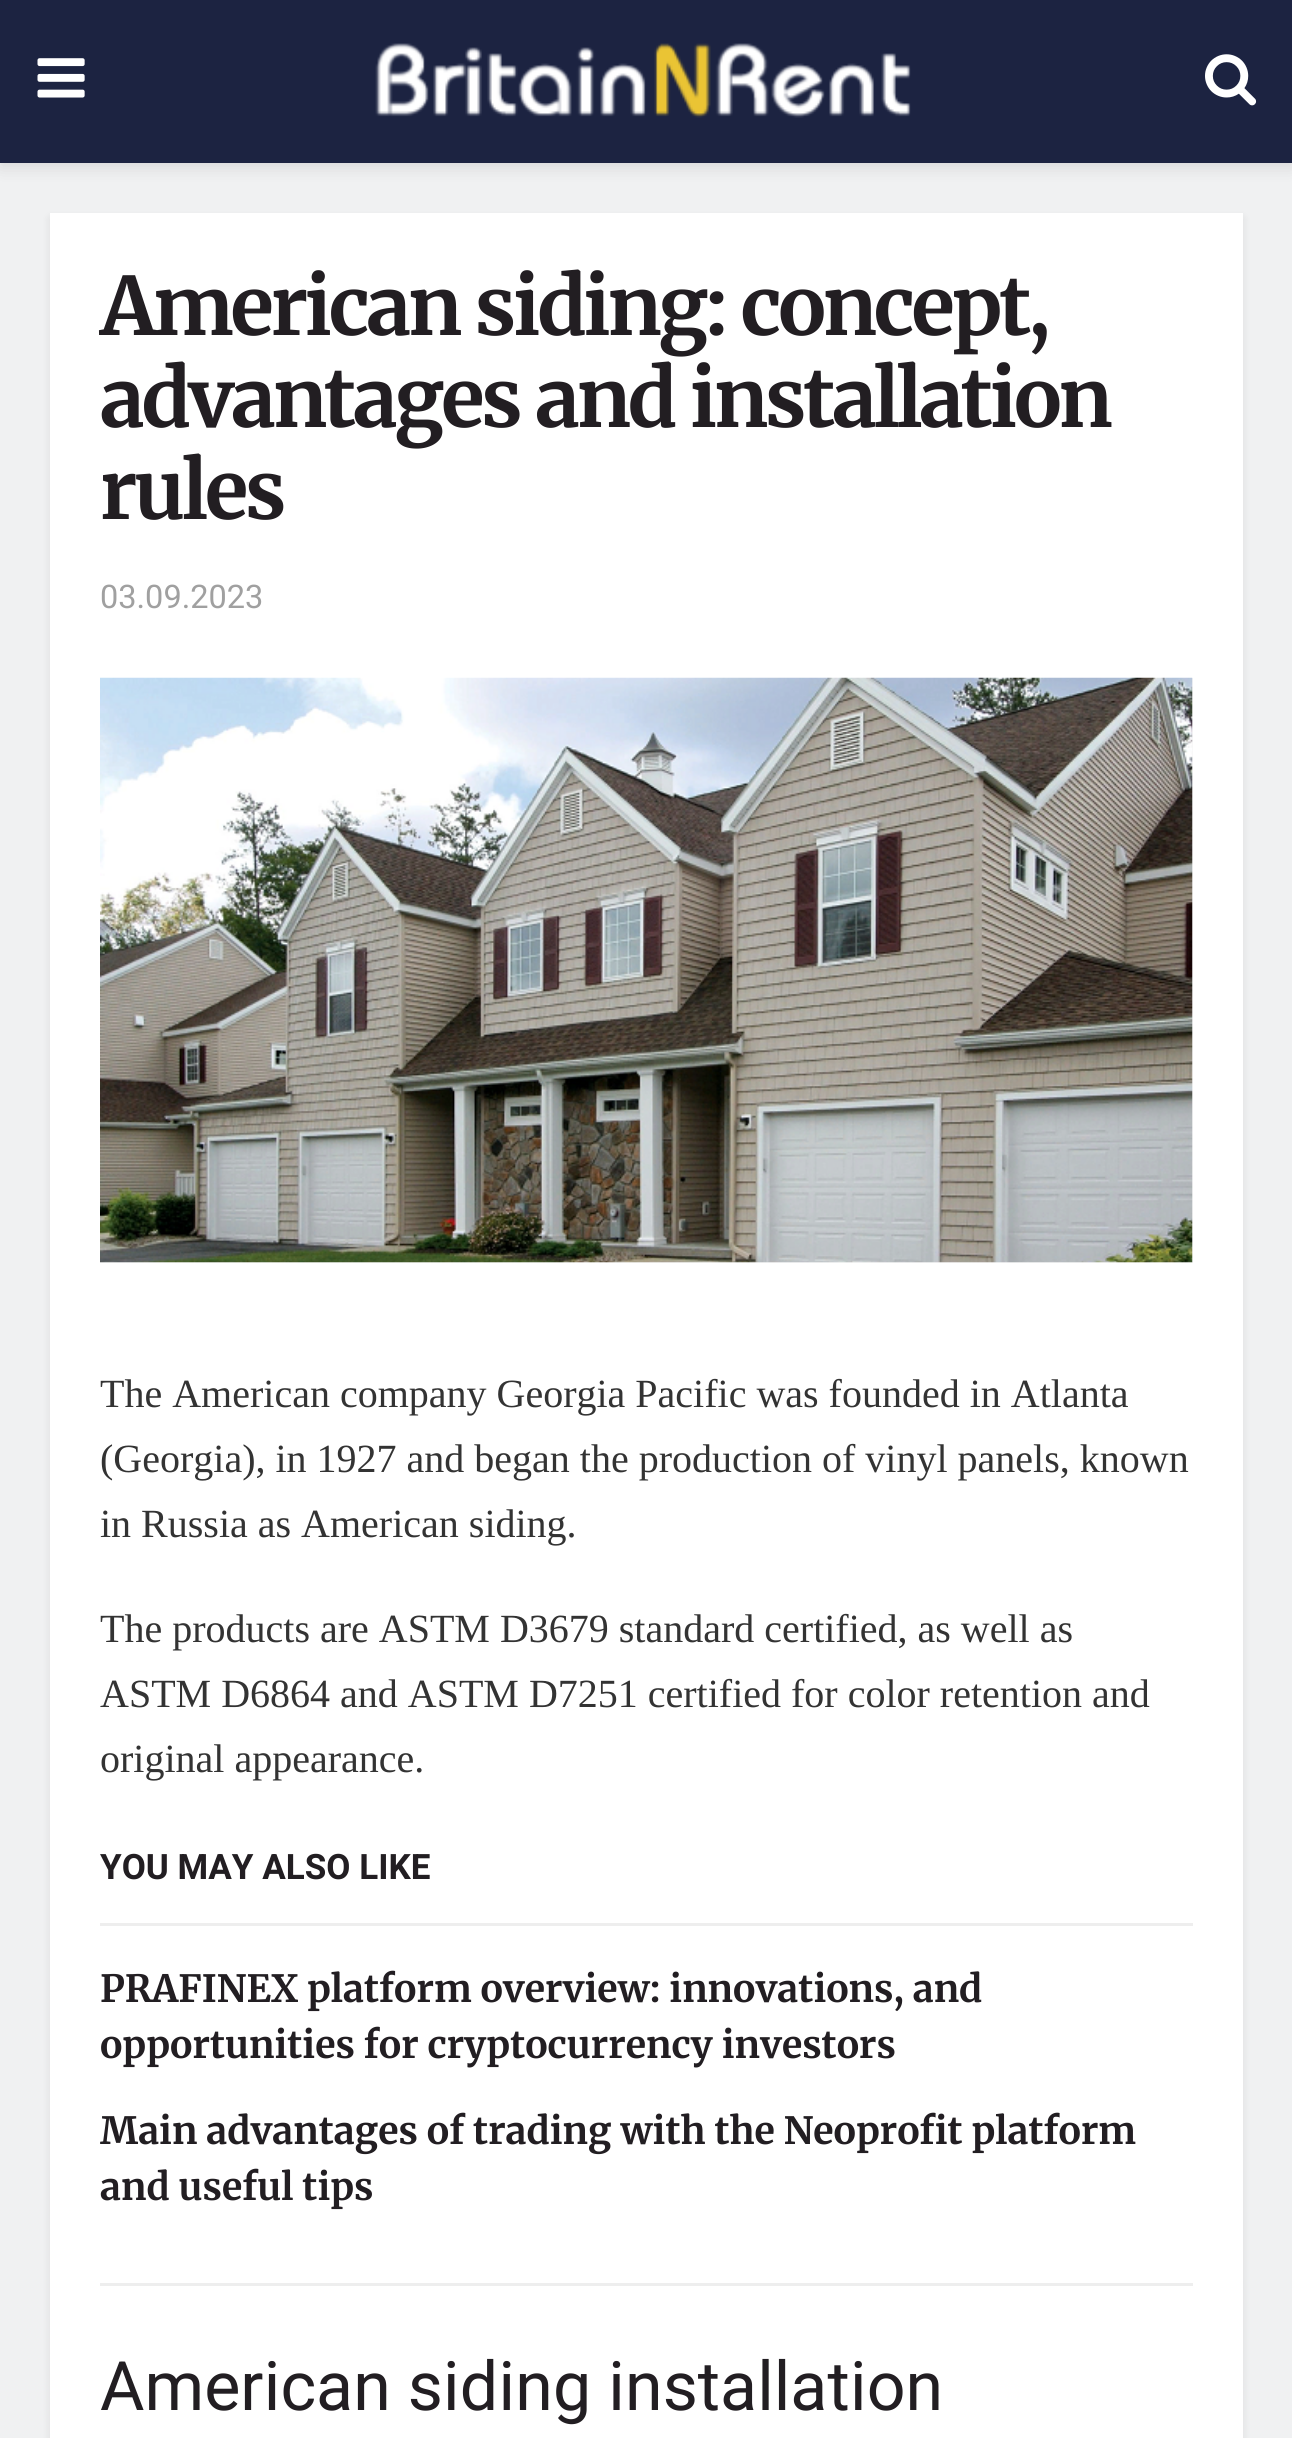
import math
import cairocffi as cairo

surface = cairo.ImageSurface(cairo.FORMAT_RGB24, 1292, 2438)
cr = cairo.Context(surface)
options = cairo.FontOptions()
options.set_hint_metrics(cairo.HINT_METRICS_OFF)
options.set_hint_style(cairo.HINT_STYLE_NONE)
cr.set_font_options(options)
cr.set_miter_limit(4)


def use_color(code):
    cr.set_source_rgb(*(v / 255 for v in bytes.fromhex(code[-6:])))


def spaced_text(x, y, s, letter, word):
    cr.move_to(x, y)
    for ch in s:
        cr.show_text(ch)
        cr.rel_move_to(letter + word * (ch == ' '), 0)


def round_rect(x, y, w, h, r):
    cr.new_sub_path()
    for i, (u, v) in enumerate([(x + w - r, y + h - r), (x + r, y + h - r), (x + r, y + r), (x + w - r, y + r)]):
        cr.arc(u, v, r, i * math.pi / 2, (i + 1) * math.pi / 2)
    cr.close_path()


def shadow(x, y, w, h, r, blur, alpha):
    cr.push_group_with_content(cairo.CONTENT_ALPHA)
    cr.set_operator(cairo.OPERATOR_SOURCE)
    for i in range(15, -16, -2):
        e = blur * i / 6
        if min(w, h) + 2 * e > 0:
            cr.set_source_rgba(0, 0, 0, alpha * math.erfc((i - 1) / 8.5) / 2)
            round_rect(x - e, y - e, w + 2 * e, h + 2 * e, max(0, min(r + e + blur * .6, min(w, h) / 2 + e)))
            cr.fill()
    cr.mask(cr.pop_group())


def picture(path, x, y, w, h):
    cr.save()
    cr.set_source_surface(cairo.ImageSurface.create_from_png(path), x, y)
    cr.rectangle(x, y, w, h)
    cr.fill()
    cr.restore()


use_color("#f0f1f2")
cr.paint()
use_color("#000000")
shadow(0, 5, 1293, 163, 0, 7.5, 0.1)
use_color("#1c2341")
cr.rectangle(0, 0, 1292, 163)
cr.fill()
picture("img1.png", 37, 58, 48, 40)
picture("img2.png", 375, 43, 536, 75)
picture("img3.png", 1205, 54, 52, 52)
use_color("#000000")
shadow(50, 218, 1193, 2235, 0, 5, 0.08)
use_color("#ffffff")
cr.rectangle(50, 213, 1193, 2225)
cr.fill()
cr.select_font_face("Merriweather", cairo.FONT_SLANT_NORMAL, cairo.FONT_WEIGHT_BOLD)
cr.set_font_size(80)
use_color("#221e22")
spaced_text(100, 335, "American siding: concept,", -3.2, 0)
spaced_text(100, 427, "advantages and installation", -3.2, 0)
spaced_text(100, 519, "rules", -3.2, 0)
cr.select_font_face("Heebo")
cr.set_font_size(32.5)
use_color("#a0a0a0")
cr.move_to(100, 608)
cr.show_text("03.09.2023")
use_color("#f7f7f7")
cr.rectangle(100, 678, 1093, 585)
cr.fill()
picture("img4.png", 100, 677, 1093, 586)
cr.select_font_face("Liberation Serif")
cr.set_font_size(40)
use_color("#333333")
cr.move_to(100, 1407)
cr.show_text("The American company Georgia Pacific was founded in Atlanta")
cr.move_to(100, 1472)
cr.show_text("(Georgia), in 1927 and began the production of vinyl panels, known")
cr.move_to(100, 1537)
cr.show_text("in Russia as American siding.")
cr.move_to(100, 1642)
cr.show_text("The products are ASTM D3679 standard certified, as well as")
cr.move_to(100, 1707)
cr.show_text("ASTM D6864 and ASTM D7251 certified for color retention and")
cr.move_to(100, 1772)
cr.show_text("original appearance.")
cr.select_font_face("Heebo", cairo.FONT_SLANT_NORMAL, cairo.FONT_WEIGHT_BOLD)
cr.set_font_size(35)
use_color("#221e22")
cr.move_to(100, 1879)
cr.show_text("YOU MAY ALSO LIKE")
use_color("#eeeeee")
cr.rectangle(100, 1923, 1093, 3)
cr.fill()
cr.rectangle(100, 2283, 1093, 3)
cr.fill()
cr.select_font_face("Merriweather", cairo.FONT_SLANT_NORMAL, cairo.FONT_WEIGHT_BOLD)
cr.set_font_size(37.5)
use_color("#221e22")
cr.move_to(100, 2002)
cr.show_text("PRAFINEX platform overview: innovations, and")
cr.move_to(100, 2058)
cr.show_text("opportunities for cryptocurrency investors")
cr.move_to(100, 2144)
cr.show_text("Main advantages of trading with the Neoprofit platform")
cr.move_to(100, 2200)
cr.show_text("and useful tips")
cr.select_font_face("Heebo")
cr.set_font_size(68.1)
cr.move_to(100, 2410)
cr.show_text("American siding installation")
surface.write_to_png("result.png")
